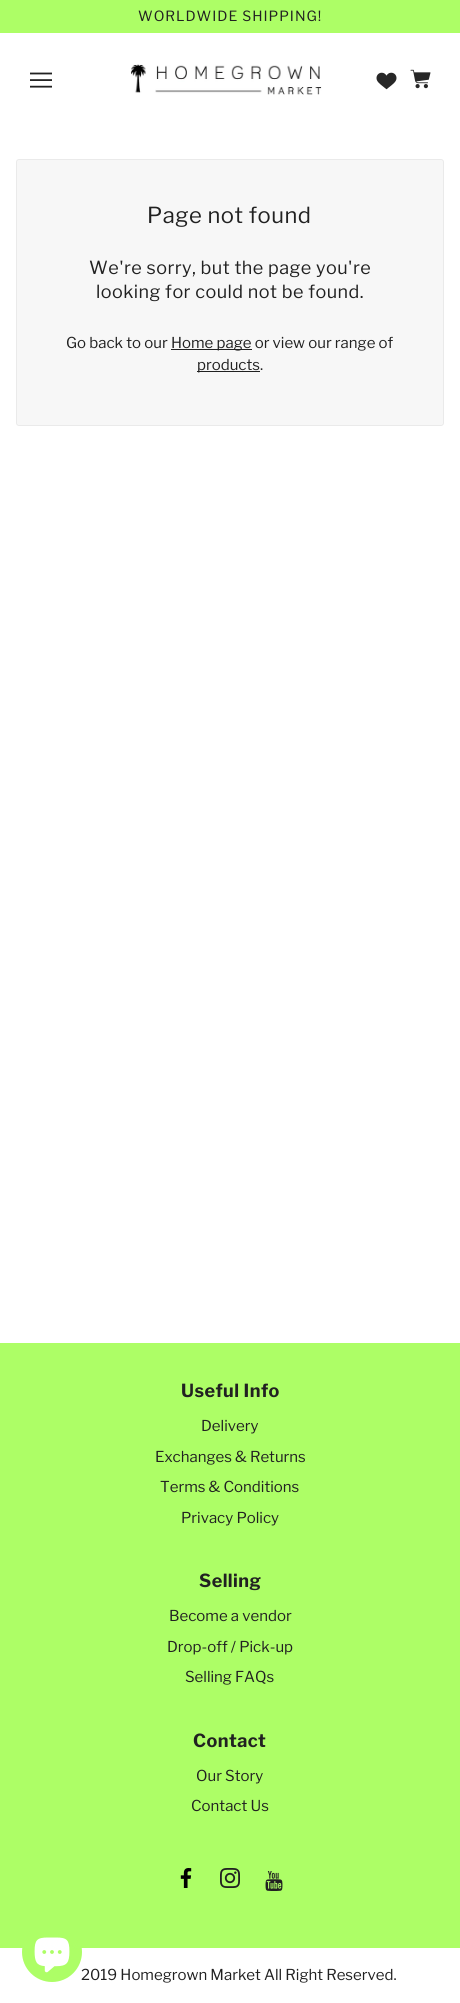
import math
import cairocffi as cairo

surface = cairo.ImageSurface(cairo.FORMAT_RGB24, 460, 2003)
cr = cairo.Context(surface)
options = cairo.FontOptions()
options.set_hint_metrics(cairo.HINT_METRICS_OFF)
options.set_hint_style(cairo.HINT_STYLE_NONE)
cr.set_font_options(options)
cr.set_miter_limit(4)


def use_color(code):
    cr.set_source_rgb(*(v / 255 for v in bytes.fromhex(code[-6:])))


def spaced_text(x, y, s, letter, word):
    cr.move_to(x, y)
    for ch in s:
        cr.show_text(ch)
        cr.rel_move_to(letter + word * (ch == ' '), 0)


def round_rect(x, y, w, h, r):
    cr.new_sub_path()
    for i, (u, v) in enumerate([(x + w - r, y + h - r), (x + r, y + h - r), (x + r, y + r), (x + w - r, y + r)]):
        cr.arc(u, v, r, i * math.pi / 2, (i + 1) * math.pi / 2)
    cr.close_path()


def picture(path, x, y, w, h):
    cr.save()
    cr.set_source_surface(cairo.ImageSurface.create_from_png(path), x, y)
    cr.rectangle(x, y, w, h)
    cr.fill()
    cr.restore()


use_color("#ffffff")
cr.paint()
use_color("#adfe66")
cr.rectangle(0, 1343, 460, 605)
cr.fill()
cr.arc(52, 1952, 30, 0, 2 * math.pi)
cr.fill()
picture("img1.png", 34, 1937, 36, 36)
cr.rectangle(0, 0, 460, 33)
cr.fill()
cr.select_font_face("Libre Franklin")
cr.set_font_size(14)
use_color("#212121")
spaced_text(138, 21, "WORLDWIDE SHIPPING!", 1, 0)
picture("img2.png", 30, 72, 22, 16)
picture("img3.png", 131, 64, 191, 31)
picture("img4.png", 376, 72, 21, 18)
picture("img5.png", 410, 69, 21, 20)
use_color("#f7f7f7")
round_rect(16.5, 159.5, 427, 266, 2.5)
cr.fill_preserve()
use_color("#eaeaea")
cr.set_line_width(1)
cr.stroke()
cr.set_font_size(22)
use_color("#212121")
spaced_text(147, 223, "Page not found", 0.5, 0)
cr.set_font_size(18)
spaced_text(89, 274, "We're sorry, but the page you're", 0.45, 0)
spaced_text(96, 298, "looking for could not be found.", 0.45, 0)
cr.set_font_size(15)
cr.move_to(66, 348)
cr.show_text("Go back to our")
cr.rectangle(171, 349, 81, 1)
cr.fill()
cr.move_to(171, 348)
cr.show_text("Home page or view our range of")
cr.rectangle(197, 371, 63, 1)
cr.fill()
cr.move_to(197, 370)
cr.show_text("products.")
cr.select_font_face("Libre Franklin", cairo.FONT_SLANT_NORMAL, cairo.FONT_WEIGHT_BOLD)
cr.set_font_size(18)
spaced_text(181, 1397, "Useful Info", 0.45, 0)
cr.select_font_face("Libre Franklin")
cr.set_font_size(15)
cr.move_to(201, 1431)
cr.show_text("Delivery")
cr.move_to(155, 1462)
cr.show_text("Exchanges & Returns")
cr.move_to(160, 1492)
cr.show_text("Terms & Conditions")
cr.move_to(181, 1523)
cr.show_text("Privacy Policy")
cr.select_font_face("Libre Franklin", cairo.FONT_SLANT_NORMAL, cairo.FONT_WEIGHT_BOLD)
cr.set_font_size(18)
spaced_text(199, 1587, "Selling", 0.45, 0)
cr.select_font_face("Libre Franklin")
cr.set_font_size(15)
cr.move_to(169, 1621)
cr.show_text("Become a vendor")
cr.move_to(167, 1652)
cr.show_text("Drop-off / Pick-up")
cr.move_to(185, 1682)
cr.show_text("Selling FAQs")
cr.select_font_face("Libre Franklin", cairo.FONT_SLANT_NORMAL, cairo.FONT_WEIGHT_BOLD)
cr.set_font_size(18)
spaced_text(193, 1747, "Contact", 0.45, 0)
cr.select_font_face("Libre Franklin")
cr.set_font_size(15)
cr.move_to(196, 1781)
cr.show_text("Our Story")
cr.move_to(191, 1811)
cr.show_text("Contact Us")
picture("img6.png", 180, 1868, 12, 20)
picture("img7.png", 220, 1868, 20, 20)
picture("img8.png", 265, 1871, 18, 20)
cr.move_to(81, 1980)
cr.show_text("2019 Homegrown Market All Right Reserved.")
surface.write_to_png("result.png")
